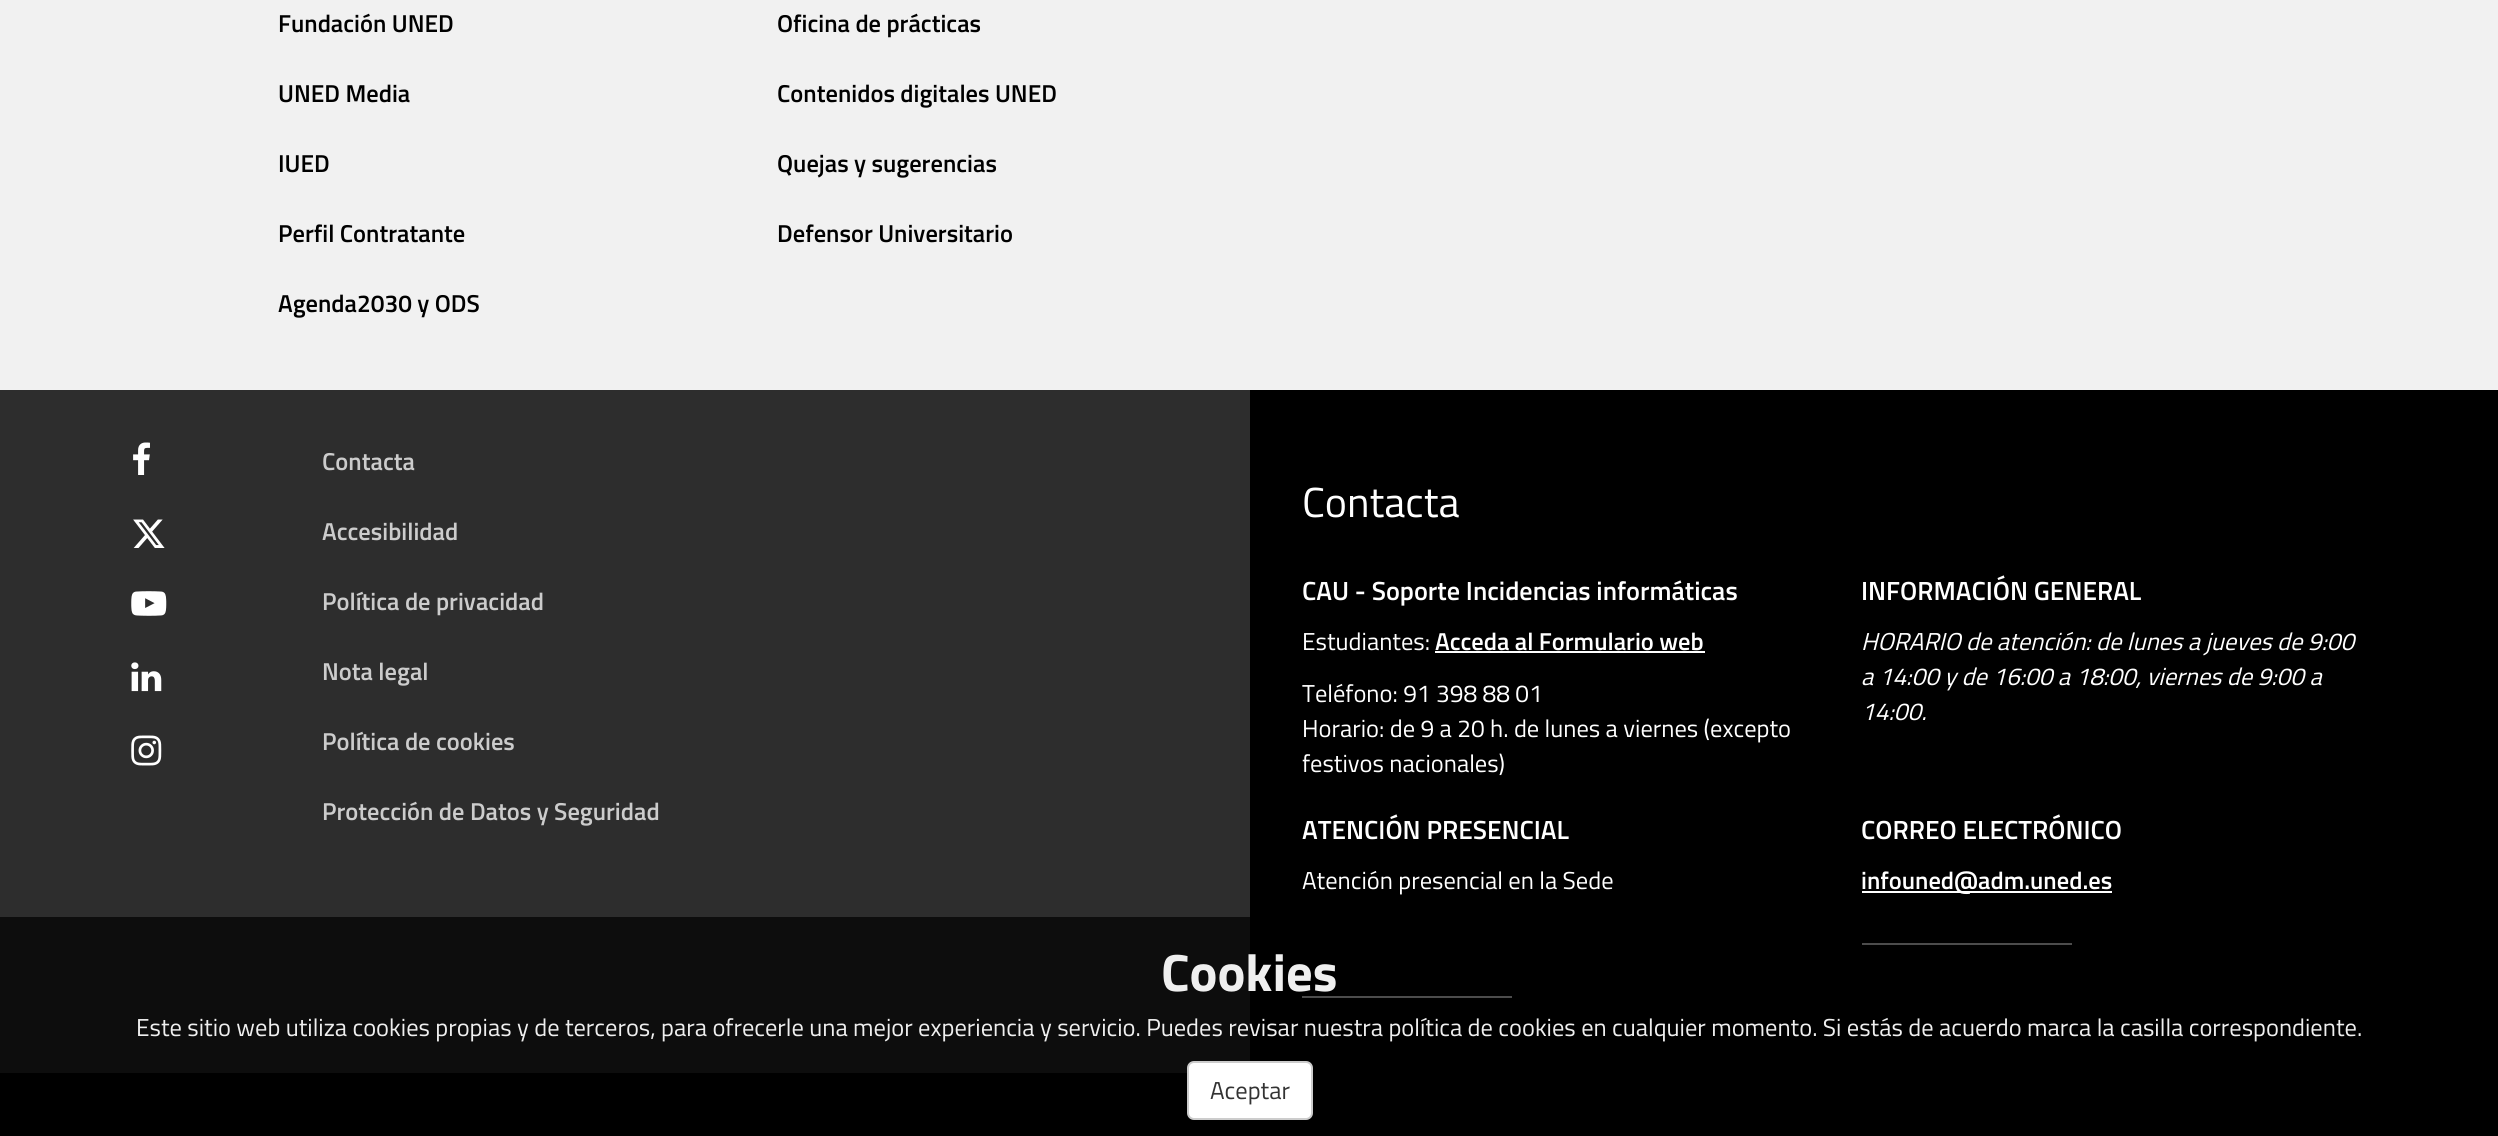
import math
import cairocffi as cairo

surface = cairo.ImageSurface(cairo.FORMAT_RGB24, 2498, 1136)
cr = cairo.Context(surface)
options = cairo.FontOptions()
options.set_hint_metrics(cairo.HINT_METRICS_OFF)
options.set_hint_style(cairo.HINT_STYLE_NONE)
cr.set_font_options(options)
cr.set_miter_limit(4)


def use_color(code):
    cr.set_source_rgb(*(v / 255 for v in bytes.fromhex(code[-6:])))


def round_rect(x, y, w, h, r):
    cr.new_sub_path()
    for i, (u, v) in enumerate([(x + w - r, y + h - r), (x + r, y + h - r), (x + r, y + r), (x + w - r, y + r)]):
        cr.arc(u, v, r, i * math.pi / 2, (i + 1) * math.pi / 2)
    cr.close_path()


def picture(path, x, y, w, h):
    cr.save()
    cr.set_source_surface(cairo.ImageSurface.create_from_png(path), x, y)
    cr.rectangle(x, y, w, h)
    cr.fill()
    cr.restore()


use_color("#f1f1f1")
cr.paint()
cr.select_font_face("Titillium Web SemiBold")
cr.set_font_size(24.5)
use_color("#000000")
cr.move_to(278, 32)
cr.show_text("Fundación UNED")
cr.move_to(278, 102)
cr.show_text("UNED Media")
cr.move_to(278, 172)
cr.show_text("IUED")
cr.move_to(278, 242)
cr.show_text("Perfil Contratante")
cr.move_to(278, 312)
cr.show_text("Agenda2030 y ODS")
cr.move_to(777, 32)
cr.show_text("Oficina de prácticas")
cr.move_to(777, 102)
cr.show_text("Contenidos digitales UNED")
cr.move_to(777, 172)
cr.show_text("Quejas y sugerencias")
cr.move_to(777, 242)
cr.show_text("Defensor Universitario")
use_color("#2d2d2d")
cr.rectangle(0, 390, 1250, 683)
cr.fill()
use_color("#000000")
cr.rectangle(1250, 390, 1248, 683)
cr.fill()
picture("img1.png", 133, 442, 17, 33)
picture("img2.png", 133, 519, 32, 29)
picture("img3.png", 131, 591, 36, 25)
picture("img4.png", 131, 662, 31, 30)
picture("img5.png", 131, 735, 31, 31)
use_color("#cccccc")
cr.move_to(322, 470)
cr.show_text("Contacta")
cr.move_to(322, 540)
cr.show_text("Accesibilidad")
cr.move_to(322, 610)
cr.show_text("Política de privacidad")
cr.move_to(322, 680)
cr.show_text("Nota legal")
cr.move_to(322, 750)
cr.show_text("Política de cookies")
cr.move_to(322, 820)
cr.show_text("Protección de Datos y Seguridad")
cr.select_font_face("Titillium Web")
cr.set_font_size(42)
use_color("#ffffff")
cr.move_to(1302, 517)
cr.show_text("Contacta")
cr.select_font_face("Titillium Web SemiBold")
cr.set_font_size(26.25)
cr.move_to(1302, 600)
cr.show_text("CAU - Soporte Incidencias informáticas")
cr.select_font_face("Titillium Web")
cr.set_font_size(24.5)
cr.move_to(1302, 650)
cr.show_text("Estudiantes:")
cr.select_font_face("Titillium Web SemiBold")
cr.move_to(1435, 650)
cr.show_text("Acceda al Formulario web")
cr.rectangle(1435, 651, 270, 2)
cr.fill()
cr.select_font_face("Titillium Web")
cr.move_to(1302, 702)
cr.show_text("Teléfono: 91 398 88 01")
cr.move_to(1302, 737)
cr.show_text("Horario: de 9 a 20 h. de lunes a viernes (excepto")
cr.move_to(1302, 772)
cr.show_text("festivos nacionales)")
cr.select_font_face("Titillium Web SemiBold")
cr.set_font_size(26.25)
cr.move_to(1861, 600)
cr.show_text("INFORMACIÓN GENERAL")
cr.select_font_face("Titillium Web", cairo.FONT_SLANT_ITALIC)
cr.set_font_size(24.5)
cr.move_to(1861, 650)
cr.show_text("HORARIO de atención: de lunes a jueves de 9:00")
cr.move_to(1861, 685)
cr.show_text("a 14:00 y de 16:00 a 18:00, viernes de 9:00 a")
cr.move_to(1861, 720)
cr.show_text("14:00.")
cr.select_font_face("Titillium Web SemiBold")
cr.set_font_size(26.25)
cr.move_to(1302, 839)
cr.show_text("ATENCIÓN PRESENCIAL")
cr.select_font_face("Titillium Web")
cr.set_font_size(24.5)
cr.move_to(1302, 889)
cr.show_text("Atención presencial en la Sede")
cr.rectangle(1302, 996, 210, 2)
cr.fill()
cr.select_font_face("Titillium Web SemiBold")
cr.set_font_size(26.25)
cr.move_to(1861, 839)
cr.show_text("CORREO ELECTRÓNICO")
cr.rectangle(1862, 891, 250, 2)
cr.fill()
cr.set_font_size(24.5)
cr.move_to(1861, 889)
cr.show_text("infouned@adm.uned.es")
cr.rectangle(1862, 943, 210, 2)
cr.fill()
use_color("#000000")
cr.rectangle(0, 1073, 2498, 63)
cr.fill()
cr.set_source_rgba(0, 0, 0, 0.7)
cr.rectangle(0, 917, 2072, 156)
cr.fill()
cr.select_font_face("Titillium Web", cairo.FONT_SLANT_NORMAL, cairo.FONT_WEIGHT_BOLD)
cr.set_font_size(52.5)
use_color("#efefef")
cr.move_to(1161, 991)
cr.show_text("Cookies")
cr.select_font_face("Titillium Web")
cr.set_font_size(24.5)
cr.move_to(136, 1036)
cr.show_text("Este sitio web utiliza cookies propias y de terceros, para ofrecerle una mejor experiencia y servicio. Puedes revisar nuestra política de cookies en cualquier momento. Si estás de acuerdo marca la casilla correspondiente.")
use_color("#ffffff")
round_rect(1188, 1062, 124, 57, 6)
cr.fill_preserve()
use_color("#cccccc")
cr.stroke()
use_color("#333333")
cr.move_to(1210, 1099)
cr.show_text("Aceptar")
surface.write_to_png("result.png")
